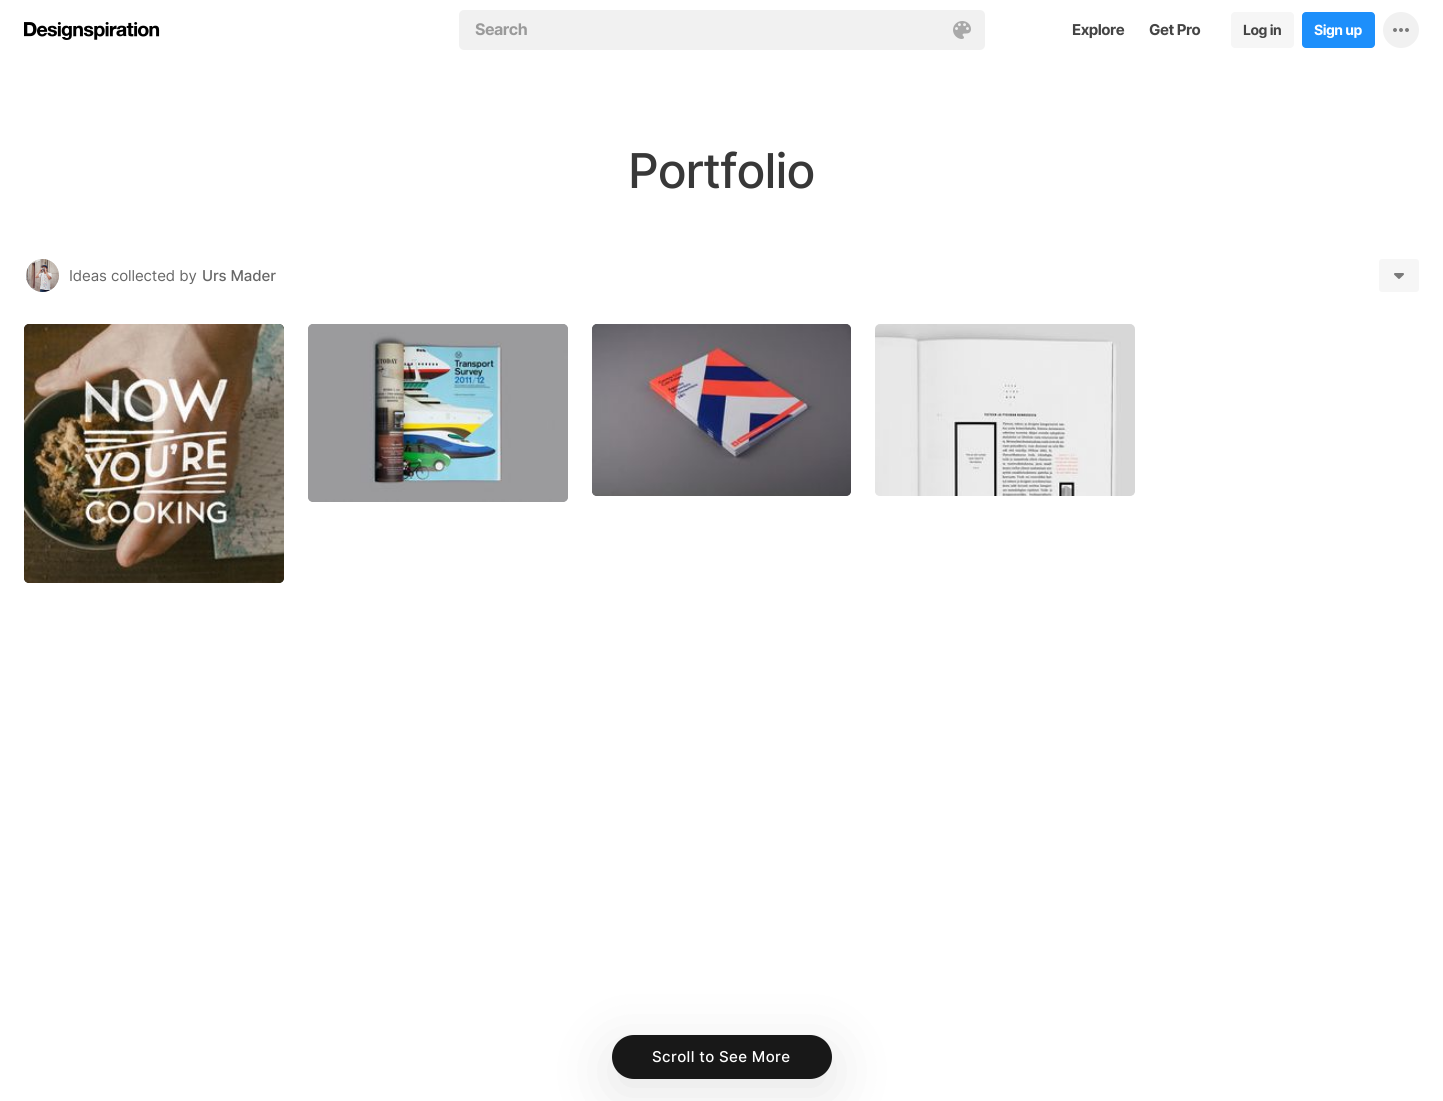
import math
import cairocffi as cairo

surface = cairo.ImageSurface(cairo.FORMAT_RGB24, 1443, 1101)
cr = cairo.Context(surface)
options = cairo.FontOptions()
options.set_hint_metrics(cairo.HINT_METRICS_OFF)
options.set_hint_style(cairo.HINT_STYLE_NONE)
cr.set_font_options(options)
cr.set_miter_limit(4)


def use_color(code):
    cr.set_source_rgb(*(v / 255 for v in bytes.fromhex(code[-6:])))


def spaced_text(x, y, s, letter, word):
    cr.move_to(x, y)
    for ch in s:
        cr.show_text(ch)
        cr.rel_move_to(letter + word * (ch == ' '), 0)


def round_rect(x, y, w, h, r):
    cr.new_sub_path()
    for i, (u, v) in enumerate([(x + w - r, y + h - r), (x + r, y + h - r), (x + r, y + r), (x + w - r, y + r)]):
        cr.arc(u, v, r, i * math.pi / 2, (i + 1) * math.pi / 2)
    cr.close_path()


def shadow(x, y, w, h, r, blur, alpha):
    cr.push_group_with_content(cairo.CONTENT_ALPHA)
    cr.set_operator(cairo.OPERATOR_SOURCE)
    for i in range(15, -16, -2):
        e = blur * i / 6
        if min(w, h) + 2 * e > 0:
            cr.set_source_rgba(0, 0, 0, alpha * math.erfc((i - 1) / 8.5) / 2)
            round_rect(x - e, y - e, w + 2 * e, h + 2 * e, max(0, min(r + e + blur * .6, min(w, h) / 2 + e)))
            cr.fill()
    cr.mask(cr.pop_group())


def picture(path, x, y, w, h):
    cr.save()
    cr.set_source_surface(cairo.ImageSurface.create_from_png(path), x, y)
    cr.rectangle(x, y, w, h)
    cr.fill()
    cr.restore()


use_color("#ffffff")
cr.paint()
picture("img1.png", 24, 22, 136, 18)
use_color("#f1f1f1")
round_rect(459, 10, 526, 40, 5)
cr.fill()
cr.select_font_face("Inter", cairo.FONT_SLANT_NORMAL, cairo.FONT_WEIGHT_BOLD)
cr.set_font_size(16)
use_color("#9a9a9a")
spaced_text(475, 35, "Search", -0.5, 0)
picture("img2.png", 953, 21, 18, 18)
cr.set_font_size(15)
use_color("#444444")
spaced_text(1072, 35, "Explore", -0.5, 0)
spaced_text(1149, 35, "Get Pro", -0.5, 0)
use_color("#f6f6f6")
round_rect(1231, 12, 63, 36, 4)
cr.fill()
cr.set_font_size(14)
use_color("#444444")
spaced_text(1243, 35, "Log in", -0.5, 0)
use_color("#1d8ffb")
round_rect(1302, 12, 73, 36, 4)
cr.fill()
use_color("#ffffff")
spaced_text(1314, 35, "Sign up", -0.5, 0)
use_color("#f1f1f1")
cr.new_path()
cr.arc(1401, 30, 18, 0, 2 * math.pi)
cr.fill()
picture("img3.png", 1393, 28, 16, 4)
cr.select_font_face("Inter Medium")
cr.set_font_size(48)
use_color("#383838")
spaced_text(628, 188, "Portfolio", -1, 0)
cr.new_path()
cr.arc(42.5, 275.5, 16, 0, 2 * math.pi)
cr.set_source_rgba(0, 0, 0, 0.1)
cr.set_line_width(1)
cr.stroke()
picture("img4.png", 26, 259, 33, 33)
cr.select_font_face("Inter")
cr.set_font_size(15)
use_color("#676767")
spaced_text(69, 281, "Ideas collected by", -0.1, 0)
cr.select_font_face("Inter Medium")
spaced_text(202, 281, "Urs Mader", -0.1, 0)
use_color("#f6f6f6")
round_rect(1379, 259, 40, 33, 3)
cr.fill()
picture("img5.png", 1394, 273, 10, 6)
use_color("#2e2919")
round_rect(24, 324, 260, 259, 5)
cr.fill()
picture("img6.png", 24, 324, 260, 259)
use_color("#9a9a9b")
round_rect(308, 324, 260, 178, 5)
cr.fill()
picture("img7.png", 308, 324, 260, 178)
use_color("#625e64")
round_rect(592, 324, 259, 172, 5)
cr.fill()
picture("img8.png", 592, 324, 259, 172)
use_color("#eaeaea")
round_rect(875, 324, 260, 172, 5)
cr.fill()
picture("img9.png", 875, 324, 260, 172)
use_color("#000000")
shadow(612, 1049, 220, 44, 22, 30, 0.1)
use_color("#181818")
round_rect(612, 1035, 220, 44, 22)
cr.fill()
use_color("#ffffff")
spaced_text(652, 1062, "Scroll to See More", 0.4, 0)
surface.write_to_png("result.png")
